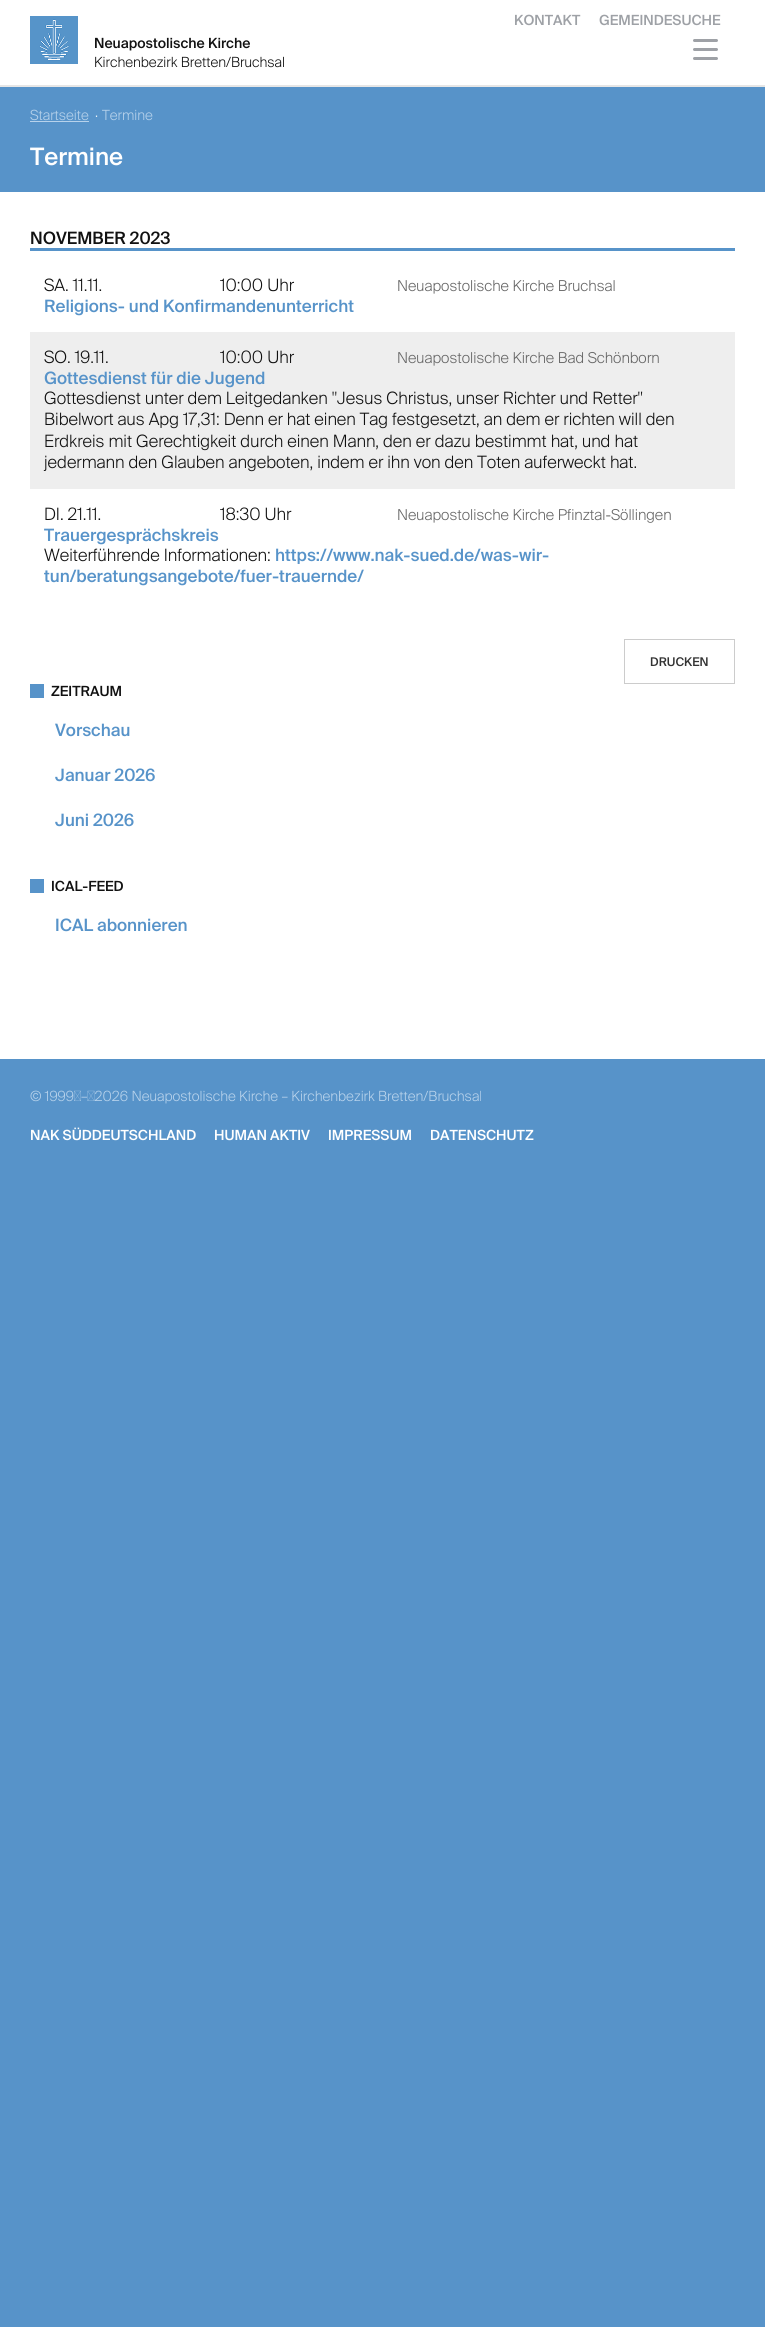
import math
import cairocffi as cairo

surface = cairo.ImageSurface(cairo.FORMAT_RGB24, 765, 2327)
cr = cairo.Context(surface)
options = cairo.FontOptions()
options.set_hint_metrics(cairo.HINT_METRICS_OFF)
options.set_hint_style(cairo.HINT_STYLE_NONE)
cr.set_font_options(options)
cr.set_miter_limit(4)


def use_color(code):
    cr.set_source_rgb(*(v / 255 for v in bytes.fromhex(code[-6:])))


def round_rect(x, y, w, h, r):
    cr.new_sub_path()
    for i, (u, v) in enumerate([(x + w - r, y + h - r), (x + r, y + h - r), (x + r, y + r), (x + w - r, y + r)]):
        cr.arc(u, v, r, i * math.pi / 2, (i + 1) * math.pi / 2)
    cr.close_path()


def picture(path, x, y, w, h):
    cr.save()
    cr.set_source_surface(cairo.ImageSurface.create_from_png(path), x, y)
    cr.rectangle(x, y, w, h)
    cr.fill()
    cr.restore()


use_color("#5793c9")
cr.paint()
use_color("#ffffff")
cr.rectangle(0, 0, 765, 1059)
cr.fill()
cr.select_font_face("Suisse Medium")
cr.set_font_size(14)
use_color("#9ea1a6")
cr.move_to(514, 25)
cr.show_text("KONTAKT")
cr.move_to(599, 25)
cr.show_text("GEMEINDESUCHE")
round_rect(693, 39, 25, 3, 1.5)
cr.fill()
round_rect(693, 48, 25, 3, 1.5)
cr.fill()
round_rect(693, 57, 25, 3, 1.5)
cr.fill()
picture("img1.png", 30, 16, 48, 48)
use_color("#111111")
cr.move_to(94, 48)
cr.show_text("Neuapostolische Kirche")
cr.select_font_face("Suisse Light")
cr.move_to(94, 67)
cr.show_text("Kirchenbezirk Bretten/Bruchsal")
use_color("#e6e6e6")
cr.rectangle(0, 85, 765, 2)
cr.fill()
use_color("#5793c9")
cr.rectangle(0, 87, 765, 105)
cr.fill()
use_color("#b7d2eb")
cr.move_to(30, 120)
cr.show_text("Startseite")
cr.rectangle(30, 121, 59, 1)
cr.fill()
use_color("#ffffff")
cr.move_to(95, 120)
cr.show_text("·")
use_color("#b7d2eb")
cr.move_to(102, 120)
cr.show_text("Termine")
cr.select_font_face("Suisse Medium")
cr.set_font_size(24)
use_color("#ffffff")
cr.move_to(30, 165)
cr.show_text("Termine")
use_color("#5793c9")
cr.rectangle(30, 248, 705, 3)
cr.fill()
cr.set_font_size(17)
use_color("#111111")
cr.move_to(30, 244)
cr.show_text("NOVEMBER 2023")
cr.select_font_face("Suisse Light")
cr.move_to(44, 291)
cr.show_text("SA. 11.11.")
cr.move_to(220, 291)
cr.show_text("10:00 Uhr")
cr.set_font_size(15)
use_color("#666666")
cr.move_to(397, 291)
cr.show_text("Neuapostolische Kirche Bruchsal")
cr.select_font_face("Suisse Medium")
cr.set_font_size(17)
use_color("#5793c9")
cr.move_to(44, 312)
cr.show_text("Religions- und Konfirmandenunterricht")
use_color("#eeeeee")
cr.rectangle(30, 332, 705, 157)
cr.fill()
cr.select_font_face("Suisse Light")
use_color("#111111")
cr.move_to(44, 363)
cr.show_text("SO. 19.11.")
cr.move_to(220, 363)
cr.show_text("10:00 Uhr")
cr.set_font_size(15)
use_color("#666666")
cr.move_to(397, 363)
cr.show_text("Neuapostolische Kirche Bad Schönborn")
cr.select_font_face("Suisse Medium")
cr.set_font_size(17)
use_color("#5793c9")
cr.move_to(44, 384)
cr.show_text("Gottesdienst für die Jugend")
cr.select_font_face("Suisse Light")
use_color("#111111")
cr.move_to(44, 404)
cr.show_text("Gottesdienst unter dem Leitgedanken \"Jesus Christus, unser Richter und Retter\"")
cr.move_to(44, 425)
cr.show_text("Bibelwort aus Apg 17,31: Denn er hat einen Tag festgesetzt, an dem er richten will den")
cr.move_to(44, 447)
cr.show_text("Erdkreis mit Gerechtigkeit durch einen Mann, den er dazu bestimmt hat, und hat")
cr.move_to(44, 468)
cr.show_text("jedermann den Glauben angeboten, indem er ihn von den Toten auferweckt hat.")
cr.move_to(44, 520)
cr.show_text("DI. 21.11.")
cr.move_to(220, 520)
cr.show_text("18:30 Uhr")
cr.set_font_size(15)
use_color("#666666")
cr.move_to(397, 520)
cr.show_text("Neuapostolische Kirche Pfinztal-Söllingen")
cr.select_font_face("Suisse Medium")
cr.set_font_size(17)
use_color("#5793c9")
cr.move_to(44, 541)
cr.show_text("Trauergesprächskreis")
cr.select_font_face("Suisse Light")
use_color("#111111")
cr.move_to(44, 561)
cr.show_text("Weiterführende Informationen:")
cr.select_font_face("Suisse Medium")
use_color("#5793c9")
cr.move_to(275, 561)
cr.show_text("https://www.nak-sued.de/was-wir-")
cr.move_to(44, 582)
cr.show_text("tun/beratungsangebote/fuer-trauernde/")
cr.rectangle(624.5, 639.5, 110, 44)
use_color("#cccccc")
cr.set_line_width(1)
cr.stroke()
cr.set_font_size(12)
use_color("#333333")
cr.move_to(650, 666)
cr.show_text("DRUCKEN")
use_color("#5793c9")
cr.rectangle(30, 684, 14, 14)
cr.fill()
cr.set_font_size(14)
use_color("#111111")
cr.move_to(51, 696)
cr.show_text("ZEITRAUM")
cr.set_font_size(17)
use_color("#5793c9")
cr.move_to(55, 736)
cr.show_text("Vorschau")
cr.move_to(55, 781)
cr.show_text("Januar 2026")
cr.move_to(55, 826)
cr.show_text("Juni 2026")
cr.rectangle(30, 879, 14, 14)
cr.fill()
cr.set_font_size(14)
use_color("#111111")
cr.move_to(51, 891)
cr.show_text("ICAL-FEED")
cr.set_font_size(17)
use_color("#5793c9")
cr.move_to(55, 931)
cr.show_text("ICAL abonnieren")
cr.select_font_face("Suisse Light")
cr.set_font_size(14)
use_color("#b7d2eb")
cr.move_to(30, 1101)
cr.show_text("© 1999 – 2026 Neuapostolische Kirche – Kirchenbezirk Bretten/Bruchsal")
cr.select_font_face("Suisse Medium")
use_color("#ffffff")
cr.move_to(30, 1140)
cr.show_text("NAK SÜDDEUTSCHLAND")
cr.move_to(214, 1140)
cr.show_text("HUMAN AKTIV")
cr.move_to(328, 1140)
cr.show_text("IMPRESSUM")
cr.move_to(430, 1140)
cr.show_text("DATENSCHUTZ")
surface.write_to_png("result.png")
